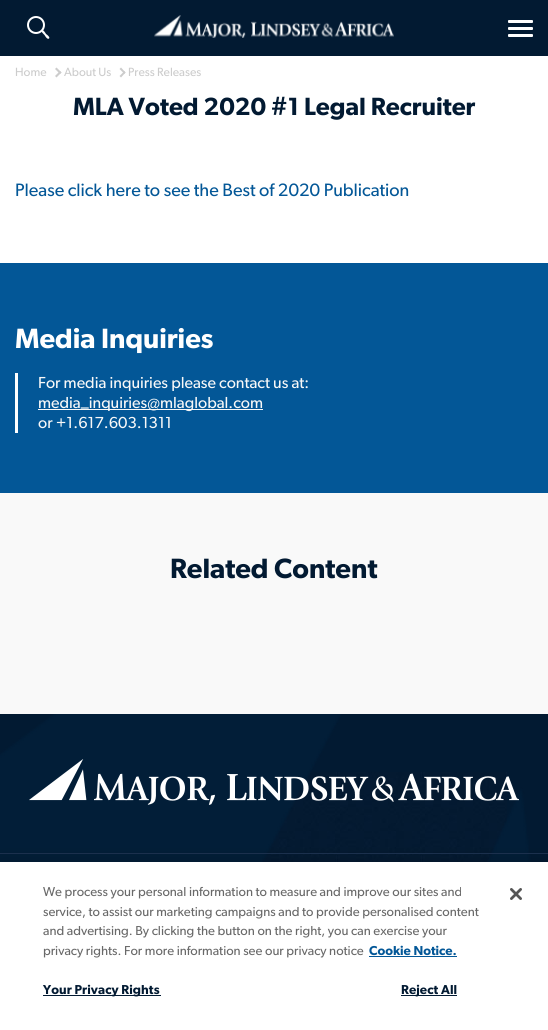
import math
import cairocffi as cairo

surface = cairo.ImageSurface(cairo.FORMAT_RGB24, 548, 1030)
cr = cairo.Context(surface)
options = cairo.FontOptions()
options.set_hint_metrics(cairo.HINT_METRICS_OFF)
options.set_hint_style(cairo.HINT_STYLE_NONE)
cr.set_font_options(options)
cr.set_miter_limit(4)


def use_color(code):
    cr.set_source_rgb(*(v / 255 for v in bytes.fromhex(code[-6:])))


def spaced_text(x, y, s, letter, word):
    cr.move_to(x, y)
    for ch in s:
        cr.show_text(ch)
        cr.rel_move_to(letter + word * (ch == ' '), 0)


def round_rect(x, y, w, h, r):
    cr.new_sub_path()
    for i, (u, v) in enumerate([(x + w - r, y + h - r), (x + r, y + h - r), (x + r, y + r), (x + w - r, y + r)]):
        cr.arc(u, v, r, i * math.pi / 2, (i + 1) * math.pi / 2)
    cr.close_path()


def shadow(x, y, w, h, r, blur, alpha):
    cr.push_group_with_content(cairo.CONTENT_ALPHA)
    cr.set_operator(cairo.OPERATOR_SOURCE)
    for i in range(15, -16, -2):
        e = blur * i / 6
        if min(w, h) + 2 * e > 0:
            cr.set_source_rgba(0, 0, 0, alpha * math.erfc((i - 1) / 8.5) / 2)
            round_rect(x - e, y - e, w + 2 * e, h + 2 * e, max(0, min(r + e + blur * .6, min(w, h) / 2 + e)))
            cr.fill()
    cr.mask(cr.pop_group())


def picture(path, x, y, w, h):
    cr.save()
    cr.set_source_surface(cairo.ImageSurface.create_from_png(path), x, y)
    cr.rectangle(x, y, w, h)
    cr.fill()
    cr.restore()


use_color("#ffffff")
cr.paint()
use_color("#021a32")
cr.rectangle(0, 0, 548, 56)
cr.fill()
cr.arc(36, 25, 8, 0, 2 * math.pi)
use_color("#ffffff")
cr.stroke()
cr.new_path()
cr.move_to(49, 38.5)
cr.curve_to(47.5, 40, 45, 36, 44.5, 35)
cr.curve_to(44, 34.5, 40.5, 31.5, 42, 30.5)
cr.curve_to(43, 29, 45.5, 33, 46, 34)
cr.curve_to(47, 34.5, 50.5, 37.5, 49, 38.5)
cr.close_path()
cr.fill()
picture("img1.png", 154, 15, 240, 23)
round_rect(508, 20, 25, 3, 1)
cr.fill()
round_rect(508, 27, 25, 3, 1)
cr.fill()
round_rect(508, 34, 25, 3, 1)
cr.fill()
cr.select_font_face("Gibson")
cr.set_font_size(12)
use_color("#cccccc")
cr.move_to(15, 76)
cr.show_text("Home")
cr.new_path()
cr.move_to(55, 69)
cr.line_to(56.5, 67.5)
cr.line_to(61.5, 72.5)
cr.line_to(60, 74)
cr.close_path()
cr.fill()
cr.new_path()
cr.move_to(55, 76)
cr.line_to(60, 71)
cr.line_to(61.5, 72.5)
cr.line_to(56.5, 77.5)
cr.close_path()
cr.fill()
cr.move_to(64, 76)
cr.show_text("About Us")
cr.new_path()
cr.move_to(119.5, 69)
cr.line_to(121, 67.5)
cr.line_to(125.5, 72.5)
cr.line_to(124.5, 74)
cr.close_path()
cr.fill()
cr.new_path()
cr.move_to(119.5, 76)
cr.line_to(124.5, 71)
cr.line_to(125.5, 72.5)
cr.line_to(121, 77.5)
cr.close_path()
cr.fill()
cr.move_to(128, 76)
cr.show_text("Press Releases")
cr.select_font_face("Gibson SemiBold")
cr.set_font_size(25)
use_color("#021a32")
cr.move_to(73, 115)
cr.show_text("MLA Voted 2020 #1 Legal Recruiter")
cr.select_font_face("Gibson")
cr.set_font_size(18)
use_color("#035797")
cr.move_to(15, 196)
cr.show_text("Please click here to see the Best of 2020 Publication")
cr.rectangle(0, 263, 548, 230)
cr.fill()
cr.select_font_face("Gibson SemiBold")
cr.set_font_size(28)
use_color("#ffffff")
cr.move_to(15, 348)
cr.show_text("Media Inquiries")
cr.rectangle(15, 373, 3, 60)
cr.fill()
cr.select_font_face("Gibson")
cr.set_font_size(16)
use_color("#f8f8f8")
cr.move_to(38, 388)
cr.show_text("For media inquiries please contact us at:")
cr.rectangle(38, 409, 225, 1)
cr.fill()
cr.move_to(38, 408)
cr.show_text("media_inquiries@mlaglobal.com")
cr.move_to(38, 428)
cr.show_text("or +1.617.603.1311")
use_color("#f9f9f9")
cr.rectangle(0, 493, 548, 221)
cr.fill()
cr.select_font_face("Gibson SemiBold")
cr.set_font_size(28)
use_color("#021a32")
cr.move_to(170, 578)
cr.show_text("Related Content")
cr.rectangle(0, 714, 548, 148)
cr.fill()
picture("img2.png", 260, 772, 247, 90)
picture("img3.png", 0, 714, 532, 148)
picture("img4.png", 29, 759, 490, 46)
use_color("#1c3250")
cr.rectangle(0, 853, 548, 1)
cr.fill()
use_color("#000000")
shadow(0, 862, 548, 168, 0, 9, 0.2)
use_color("#ffffff")
cr.rectangle(0, 862, 548, 168)
cr.fill()
cr.select_font_face("Gibson")
cr.set_font_size(13)
use_color("#696969")
cr.move_to(43, 896)
cr.show_text("We process your personal information to measure and improve our sites and")
cr.move_to(43, 916)
cr.show_text("service, to assist our marketing campaigns and to provide personalised content")
cr.move_to(43, 935)
cr.show_text("and advertising. By clicking the button on the right, you can exercise your")
cr.move_to(43, 955)
cr.show_text("privacy rights. For more information see our privacy notice")
cr.select_font_face("Gibson SemiBold")
use_color("#035797")
cr.move_to(369, 955)
cr.show_text("Cookie Notice.")
cr.rectangle(369, 956, 88, 1)
cr.fill()
use_color("#021a32")
cr.rectangle(43, 995, 118, 1)
cr.fill()
spaced_text(43, 994, "Your Privacy Rights", 0.1, 0)
cr.rectangle(401, 995, 56, 1)
cr.fill()
spaced_text(401, 994, "Reject All", 0.1, 0)
picture("img5.png", 510, 888, 12, 12)
surface.write_to_png("result.png")
